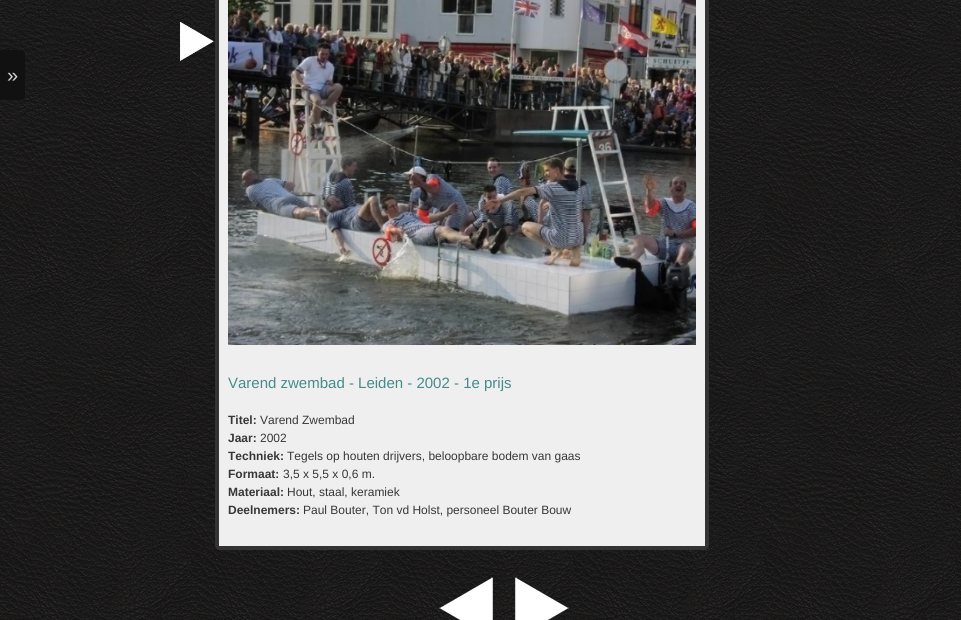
import math
import cairocffi as cairo

surface = cairo.ImageSurface(cairo.FORMAT_RGB24, 961, 620)
cr = cairo.Context(surface)
options = cairo.FontOptions()
options.set_hint_metrics(cairo.HINT_METRICS_OFF)
options.set_hint_style(cairo.HINT_STYLE_NONE)
cr.set_font_options(options)
cr.set_miter_limit(4)


def use_color(code):
    cr.set_source_rgb(*(v / 255 for v in bytes.fromhex(code[-6:])))


def round_rect(x, y, w, h, r):
    cr.new_sub_path()
    for i, (u, v) in enumerate([(x + w - r, y + h - r), (x + r, y + h - r), (x + r, y + r), (x + w - r, y + r)]):
        cr.arc(u, v, r, i * math.pi / 2, (i + 1) * math.pi / 2)
    cr.close_path()


def picture(path, x, y, w, h):
    cr.save()
    cr.set_source_surface(cairo.ImageSurface.create_from_png(path), x, y)
    cr.rectangle(x, y, w, h)
    cr.fill()
    cr.restore()


use_color("#181818")
cr.paint()
picture("img1.png", 0, 0, 961, 620)
use_color("#121111")
cr.new_path()
cr.move_to(0, 50)
cr.line_to(21, 50)
cr.curve_to(23, 50, 25, 52, 25, 54)
cr.line_to(25, 96)
cr.curve_to(25, 98, 23, 100, 21, 100)
cr.line_to(0, 100)
cr.close_path()
cr.fill()
cr.select_font_face("Liberation Sans")
cr.set_font_size(20)
use_color("#d2d2d2")
cr.move_to(7, 82)
cr.show_text("»")
use_color("#efefef")
round_rect(216, -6, 492, 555, 4)
cr.fill_preserve()
use_color("#333333")
cr.stroke()
cr.rectangle(218, -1, 488, 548)
cr.stroke()
picture("img2.png", 180, 21, 34, 40)
picture("img3.png", 228, 0, 468, 345)
cr.set_font_size(15)
use_color("#458b8b")
cr.move_to(228, 388)
cr.show_text("Varend zwembad - Leiden - 2002 - 1e prijs")
cr.select_font_face("Liberation Sans", cairo.FONT_SLANT_NORMAL, cairo.FONT_WEIGHT_BOLD)
cr.set_font_size(12)
use_color("#373737")
cr.move_to(228, 424)
cr.show_text("Titel:")
cr.select_font_face("Liberation Sans")
cr.move_to(260, 424)
cr.show_text("Varend Zwembad")
cr.select_font_face("Liberation Sans", cairo.FONT_SLANT_NORMAL, cairo.FONT_WEIGHT_BOLD)
cr.move_to(228, 442)
cr.show_text("Jaar:")
cr.select_font_face("Liberation Sans")
cr.move_to(260, 442)
cr.show_text("2002")
cr.select_font_face("Liberation Sans", cairo.FONT_SLANT_NORMAL, cairo.FONT_WEIGHT_BOLD)
cr.move_to(228, 460)
cr.show_text("Techniek:")
cr.select_font_face("Liberation Sans")
cr.move_to(287, 460)
cr.show_text("Tegels op houten drijvers, beloopbare bodem van gaas")
cr.select_font_face("Liberation Sans", cairo.FONT_SLANT_NORMAL, cairo.FONT_WEIGHT_BOLD)
cr.move_to(228, 478)
cr.show_text("Formaat:")
cr.select_font_face("Liberation Sans")
cr.move_to(283, 478)
cr.show_text("3,5 x 5,5 x 0,6 m.")
cr.select_font_face("Liberation Sans", cairo.FONT_SLANT_NORMAL, cairo.FONT_WEIGHT_BOLD)
cr.move_to(228, 496)
cr.show_text("Materiaal:")
cr.select_font_face("Liberation Sans")
cr.move_to(287, 496)
cr.show_text("Hout, staal, keramiek")
cr.select_font_face("Liberation Sans", cairo.FONT_SLANT_NORMAL, cairo.FONT_WEIGHT_BOLD)
cr.move_to(228, 514)
cr.show_text("Deelnemers:")
cr.select_font_face("Liberation Sans")
cr.move_to(303, 514)
cr.show_text("Paul Bouter, Ton vd Holst, personeel Bouter Bouw")
picture("img4.png", 439, 577, 54, 43)
picture("img5.png", 515, 577, 54, 43)
surface.write_to_png("result.png")
